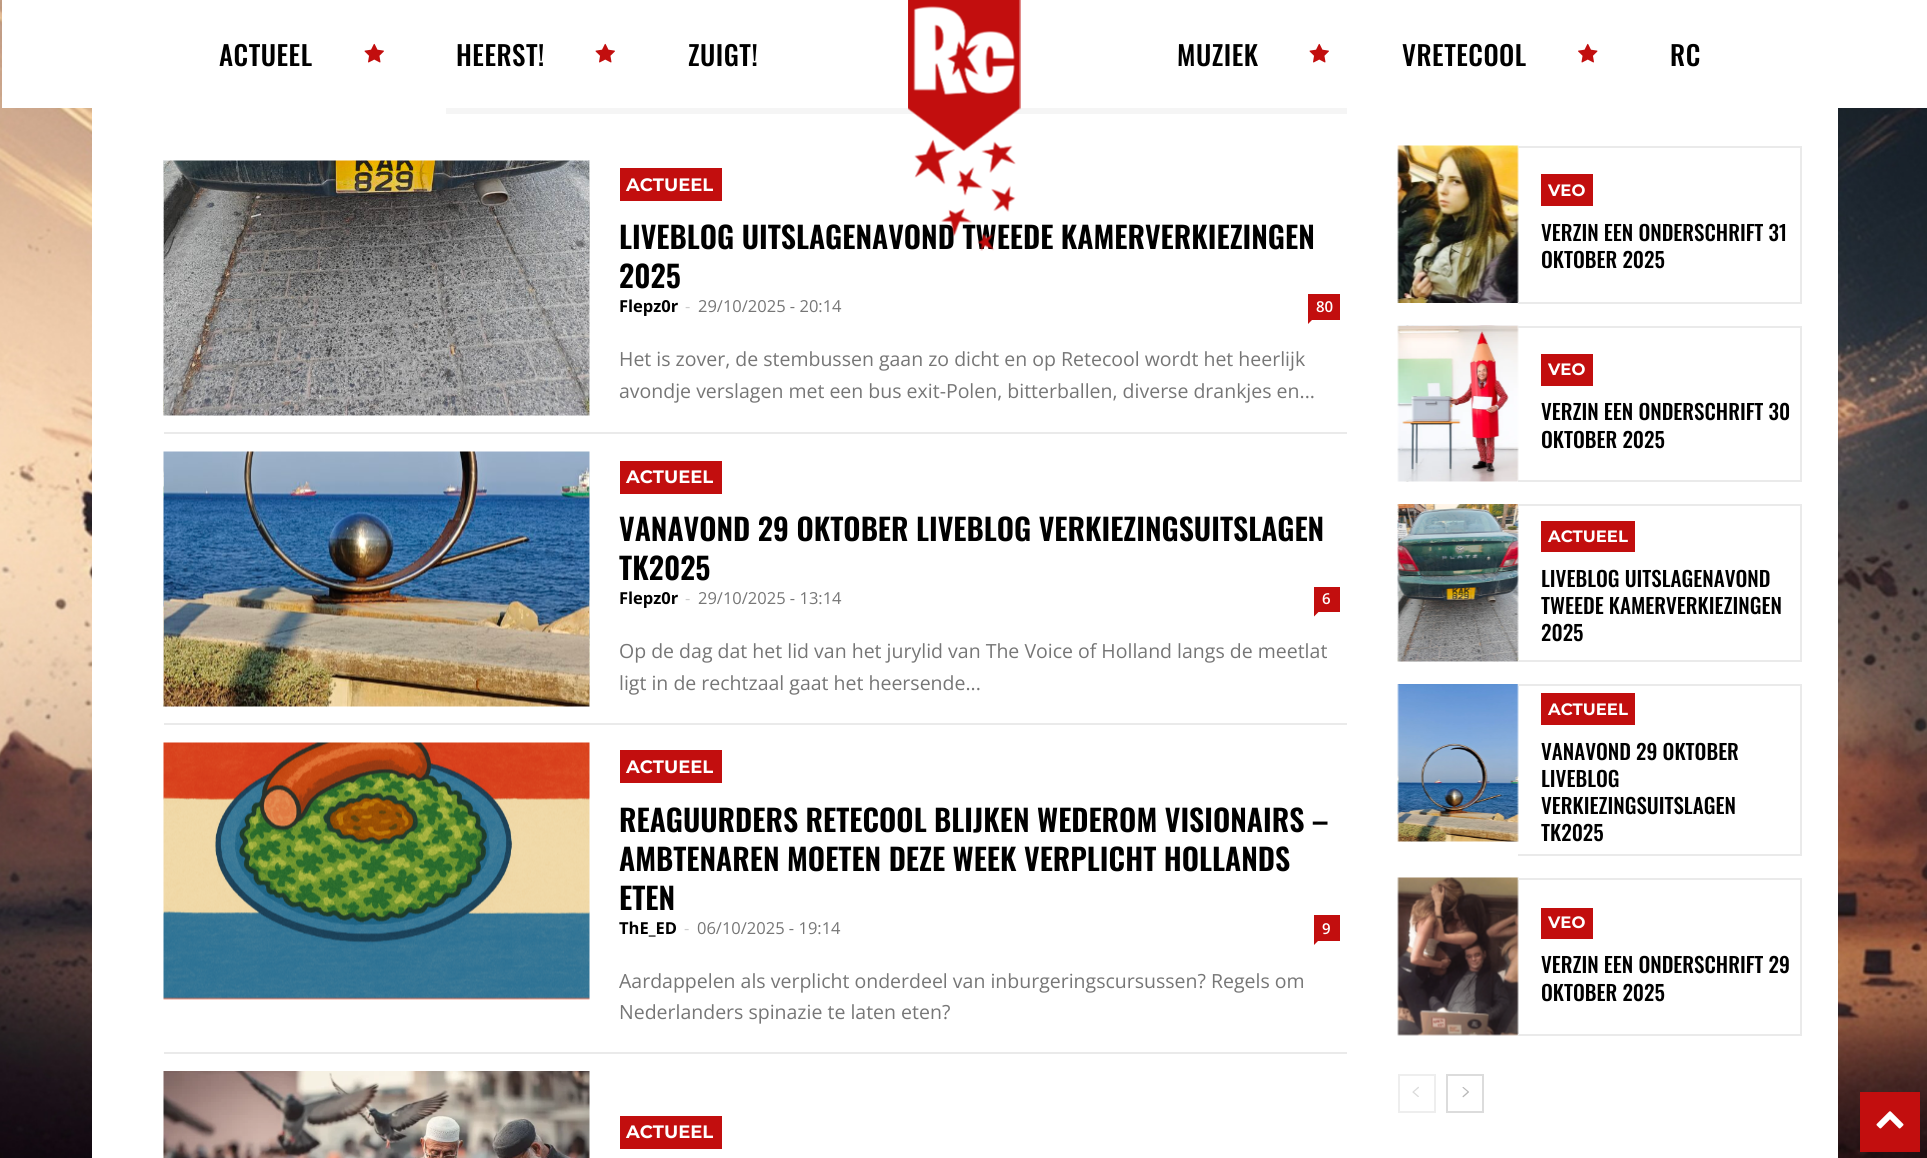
import math
import cairocffi as cairo

surface = cairo.ImageSurface(cairo.FORMAT_RGB24, 1927, 1158)
cr = cairo.Context(surface)
options = cairo.FontOptions()
options.set_hint_metrics(cairo.HINT_METRICS_OFF)
options.set_hint_style(cairo.HINT_STYLE_NONE)
cr.set_font_options(options)
cr.set_miter_limit(4)


def use_color(code):
    cr.set_source_rgb(*(v / 255 for v in bytes.fromhex(code[-6:])))


def spaced_text(x, y, s, letter, word):
    cr.move_to(x, y)
    for ch in s:
        cr.show_text(ch)
        cr.rel_move_to(letter + word * (ch == ' '), 0)


def picture(path, x, y, w, h):
    cr.save()
    cr.set_source_surface(cairo.ImageSurface.create_from_png(path), x, y)
    cr.rectangle(x, y, w, h)
    cr.fill()
    cr.restore()


use_color("#ffffff")
cr.paint()
picture("img1.png", 0, 0, 1927, 1158)
use_color("#ffffff")
cr.rectangle(2, 0, 1925, 108)
cr.fill()
cr.select_font_face("Oswald Medium")
cr.set_font_size(27)
use_color("#000000")
spaced_text(219, 66, "ACTUEEL", 0.5, 0)
picture("img2.png", 364, 43, 20, 20)
spaced_text(456, 66, "HEERST!", 0.5, 0)
picture("img2.png", 595, 43, 20, 20)
spaced_text(688, 66, "ZUIGT!", 0.5, 0)
use_color("#ffffff")
cr.rectangle(92, 108, 1746, 1050)
cr.fill()
use_color("#f5f5f5")
cr.rectangle(446, 108, 901, 6)
cr.fill()
cr.select_font_face("Oswald SemiBold")
cr.set_font_size(30)
use_color("#000000")
cr.move_to(619, 249)
cr.show_text("LIVEBLOG UITSLAGENAVOND TWEEDE KAMERVERKIEZINGEN")
picture("img3.png", 908, 0, 113, 251)
cr.select_font_face("Oswald Medium")
cr.set_font_size(27)
spaced_text(1177, 66, "MUZIEK", 0.5, 0)
picture("img2.png", 1309, 43, 20, 20)
spaced_text(1402, 66, "VRETECOOL", 0.5, 0)
picture("img4.png", 1578, 43, 20, 20)
spaced_text(1670, 66, "RC", 0.5, 0)
picture("img5.png", 163, 160, 427, 256)
use_color("#c20e0e")
cr.rectangle(620, 168, 102, 33)
cr.fill()
cr.select_font_face("Montserrat", cairo.FONT_SLANT_NORMAL, cairo.FONT_WEIGHT_BOLD)
cr.set_font_size(18)
use_color("#ffffff")
cr.move_to(626, 191)
cr.show_text("ACTUEEL")
cr.select_font_face("Oswald SemiBold")
cr.set_font_size(30)
use_color("#000000")
cr.move_to(619, 288)
cr.show_text("2025")
cr.select_font_face("Open Sans", cairo.FONT_SLANT_NORMAL, cairo.FONT_WEIGHT_BOLD)
cr.set_font_size(16.5)
cr.move_to(619, 312)
cr.show_text("Flepz0r")
cr.select_font_face("Open Sans")
use_color("#cccccc")
cr.move_to(685, 312)
cr.show_text("-")
use_color("#767676")
cr.move_to(698, 312)
cr.show_text("29/10/2025 - 20:14")
use_color("#c20e0e")
cr.rectangle(1308, 294, 32, 26)
cr.fill()
cr.select_font_face("Open Sans SemiBold")
cr.set_font_size(15)
use_color("#ffffff")
cr.move_to(1316, 312)
cr.show_text("80")
use_color("#c20e0e")
cr.new_path()
cr.move_to(1308, 319.5)
cr.line_to(1312.5, 319.5)
cr.line_to(1308, 324)
cr.close_path()
cr.fill()
cr.select_font_face("Open Sans")
cr.set_font_size(19.5)
use_color("#767676")
cr.move_to(619, 366)
cr.show_text("Het is zover, de stembussen gaan zo dicht en op Retecool wordt het heerlijk")
cr.move_to(619, 398)
cr.show_text("avondje verslagen met een bus exit-Polen, bitterballen, diverse drankjes en...")
use_color("#eaeaea")
cr.rectangle(164, 432, 1183, 2)
cr.fill()
picture("img6.png", 163, 451, 427, 256)
use_color("#c20e0e")
cr.rectangle(620, 461, 102, 33)
cr.fill()
cr.select_font_face("Montserrat", cairo.FONT_SLANT_NORMAL, cairo.FONT_WEIGHT_BOLD)
cr.set_font_size(18)
use_color("#ffffff")
cr.move_to(626, 483)
cr.show_text("ACTUEEL")
cr.select_font_face("Oswald SemiBold")
cr.set_font_size(30)
use_color("#000000")
cr.move_to(619, 541)
cr.show_text("VANAVOND 29 OKTOBER LIVEBLOG VERKIEZINGSUITSLAGEN")
cr.move_to(619, 580)
cr.show_text("TK2025")
cr.select_font_face("Open Sans", cairo.FONT_SLANT_NORMAL, cairo.FONT_WEIGHT_BOLD)
cr.set_font_size(16.5)
cr.move_to(619, 604)
cr.show_text("Flepz0r")
cr.select_font_face("Open Sans")
use_color("#cccccc")
cr.move_to(685, 604)
cr.show_text("-")
use_color("#767676")
cr.move_to(698, 604)
cr.show_text("29/10/2025 - 13:14")
use_color("#c20e0e")
cr.rectangle(1314, 587, 26, 25)
cr.fill()
cr.select_font_face("Open Sans SemiBold")
cr.set_font_size(15)
use_color("#ffffff")
cr.move_to(1322, 604)
cr.show_text("6")
use_color("#c20e0e")
cr.new_path()
cr.move_to(1314, 612)
cr.line_to(1318.5, 612)
cr.line_to(1314, 616.5)
cr.close_path()
cr.fill()
cr.select_font_face("Open Sans")
cr.set_font_size(19.5)
use_color("#767676")
cr.move_to(619, 658)
cr.show_text("Op de dag dat het lid van het jurylid van The Voice of Holland langs de meetlat")
cr.move_to(619, 690)
cr.show_text("ligt in de rechtzaal gaat het heersende...")
use_color("#eaeaea")
cr.rectangle(164, 723, 1183, 2)
cr.fill()
picture("img7.png", 163, 742, 427, 258)
use_color("#c20e0e")
cr.rectangle(620, 750, 102, 33)
cr.fill()
cr.select_font_face("Montserrat", cairo.FONT_SLANT_NORMAL, cairo.FONT_WEIGHT_BOLD)
cr.set_font_size(18)
use_color("#ffffff")
cr.move_to(626, 773)
cr.show_text("ACTUEEL")
cr.select_font_face("Oswald SemiBold")
cr.set_font_size(30)
use_color("#000000")
cr.move_to(619, 832)
cr.show_text("REAGUURDERS RETECOOL BLIJKEN WEDEROM VISIONAIRS –")
cr.move_to(619, 871)
cr.show_text("AMBTENAREN MOETEN DEZE WEEK VERPLICHT HOLLANDS")
cr.move_to(619, 910)
cr.show_text("ETEN")
cr.select_font_face("Open Sans", cairo.FONT_SLANT_NORMAL, cairo.FONT_WEIGHT_BOLD)
cr.set_font_size(16.5)
cr.move_to(619, 934)
cr.show_text("ThE_ED")
cr.select_font_face("Open Sans")
use_color("#cccccc")
cr.move_to(684, 934)
cr.show_text("-")
use_color("#767676")
cr.move_to(697, 934)
cr.show_text("06/10/2025 - 19:14")
use_color("#c20e0e")
cr.rectangle(1314, 915, 26, 26)
cr.fill()
cr.select_font_face("Open Sans SemiBold")
cr.set_font_size(15)
use_color("#ffffff")
cr.move_to(1322, 934)
cr.show_text("9")
use_color("#c20e0e")
cr.new_path()
cr.move_to(1314, 940.5)
cr.line_to(1318.5, 940.5)
cr.line_to(1314, 945)
cr.close_path()
cr.fill()
cr.select_font_face("Open Sans")
cr.set_font_size(19.5)
use_color("#767676")
cr.move_to(619, 988)
cr.show_text("Aardappelen als verplicht onderdeel van inburgeringscursussen? Regels om")
cr.move_to(619, 1019)
cr.show_text("Nederlanders spinazie te laten eten?")
use_color("#eaeaea")
cr.rectangle(164, 1052, 1183, 2)
cr.fill()
picture("img8.png", 163, 1071, 427, 87)
use_color("#c20e0e")
cr.rectangle(620, 1116, 102, 33)
cr.fill()
cr.select_font_face("Montserrat", cairo.FONT_SLANT_NORMAL, cairo.FONT_WEIGHT_BOLD)
cr.set_font_size(18)
use_color("#ffffff")
cr.move_to(626, 1138)
cr.show_text("ACTUEEL")
picture("img9.png", 1397, 145, 122, 158)
use_color("#eaeaea")
cr.rectangle(1518, 146, 284, 2)
cr.fill()
cr.rectangle(1800, 146, 2, 157)
cr.fill()
cr.rectangle(1518, 302, 284, 2)
cr.fill()
use_color("#c20e0e")
cr.rectangle(1541, 174, 52, 32)
cr.fill()
cr.set_font_size(16.5)
use_color("#ffffff")
cr.move_to(1548, 196)
cr.show_text("VEO")
cr.select_font_face("Oswald Medium")
cr.set_font_size(21)
use_color("#000000")
cr.move_to(1541, 241)
cr.show_text("VERZIN EEN ONDERSCHRIFT 31")
cr.move_to(1541, 268)
cr.show_text("OKTOBER 2025")
picture("img10.png", 1397, 325, 122, 157)
use_color("#eaeaea")
cr.rectangle(1518, 326, 284, 2)
cr.fill()
cr.rectangle(1800, 326, 2, 156)
cr.fill()
cr.rectangle(1518, 480, 284, 2)
cr.fill()
use_color("#c20e0e")
cr.rectangle(1541, 354, 52, 32)
cr.fill()
cr.select_font_face("Montserrat", cairo.FONT_SLANT_NORMAL, cairo.FONT_WEIGHT_BOLD)
cr.set_font_size(16.5)
use_color("#ffffff")
cr.move_to(1548, 375)
cr.show_text("VEO")
cr.select_font_face("Oswald Medium")
cr.set_font_size(21)
use_color("#000000")
cr.move_to(1541, 420)
cr.show_text("VERZIN EEN ONDERSCHRIFT 30")
cr.move_to(1541, 448)
cr.show_text("OKTOBER 2025")
picture("img11.png", 1397, 504, 122, 158)
use_color("#eaeaea")
cr.rectangle(1518, 504, 284, 2)
cr.fill()
cr.rectangle(1800, 504, 2, 158)
cr.fill()
cr.rectangle(1518, 660, 284, 2)
cr.fill()
use_color("#c20e0e")
cr.rectangle(1541, 521, 94, 31)
cr.fill()
cr.select_font_face("Montserrat", cairo.FONT_SLANT_NORMAL, cairo.FONT_WEIGHT_BOLD)
cr.set_font_size(16.5)
use_color("#ffffff")
cr.move_to(1548, 542)
cr.show_text("ACTUEEL")
cr.select_font_face("Oswald Medium")
cr.set_font_size(21)
use_color("#000000")
cr.move_to(1541, 587)
cr.show_text("LIVEBLOG UITSLAGENAVOND")
cr.move_to(1541, 614)
cr.show_text("TWEEDE KAMERVERKIEZINGEN")
cr.move_to(1541, 641)
cr.show_text("2025")
picture("img12.png", 1397, 684, 122, 158)
use_color("#eaeaea")
cr.rectangle(1518, 684, 284, 2)
cr.fill()
cr.rectangle(1800, 684, 2, 171)
cr.fill()
cr.rectangle(1518, 854, 284, 2)
cr.fill()
use_color("#c20e0e")
cr.rectangle(1541, 693, 94, 32)
cr.fill()
cr.select_font_face("Montserrat", cairo.FONT_SLANT_NORMAL, cairo.FONT_WEIGHT_BOLD)
cr.set_font_size(16.5)
use_color("#ffffff")
cr.move_to(1548, 715)
cr.show_text("ACTUEEL")
cr.select_font_face("Oswald Medium")
cr.set_font_size(21)
use_color("#000000")
cr.move_to(1541, 760)
cr.show_text("VANAVOND 29 OKTOBER")
cr.move_to(1541, 787)
cr.show_text("LIVEBLOG")
cr.move_to(1541, 814)
cr.show_text("VERKIEZINGSUITSLAGEN")
cr.move_to(1541, 841)
cr.show_text("TK2025")
picture("img13.png", 1397, 877, 122, 159)
use_color("#eaeaea")
cr.rectangle(1518, 878, 284, 2)
cr.fill()
cr.rectangle(1800, 878, 2, 157)
cr.fill()
cr.rectangle(1518, 1034, 284, 2)
cr.fill()
use_color("#c20e0e")
cr.rectangle(1541, 908, 52, 31)
cr.fill()
cr.select_font_face("Montserrat", cairo.FONT_SLANT_NORMAL, cairo.FONT_WEIGHT_BOLD)
cr.set_font_size(16.5)
use_color("#ffffff")
cr.move_to(1548, 928)
cr.show_text("VEO")
cr.select_font_face("Oswald Medium")
cr.set_font_size(21)
use_color("#000000")
cr.move_to(1541, 973)
cr.show_text("VERZIN EEN ONDERSCHRIFT 29")
cr.move_to(1541, 1001)
cr.show_text("OKTOBER 2025")
cr.rectangle(1399, 1075, 36, 37)
use_color("#eeeeee")
cr.stroke()
picture("img14.png", 1412, 1086, 7, 11)
cr.rectangle(1447, 1075, 36, 37)
use_color("#dcdcdc")
cr.stroke()
picture("img15.png", 1462, 1087, 7, 11)
use_color("#c20e0e")
cr.rectangle(1860, 1092, 60, 60)
cr.fill()
picture("img16.png", 1876, 1111, 28, 18)
surface.write_to_png("result.png")
